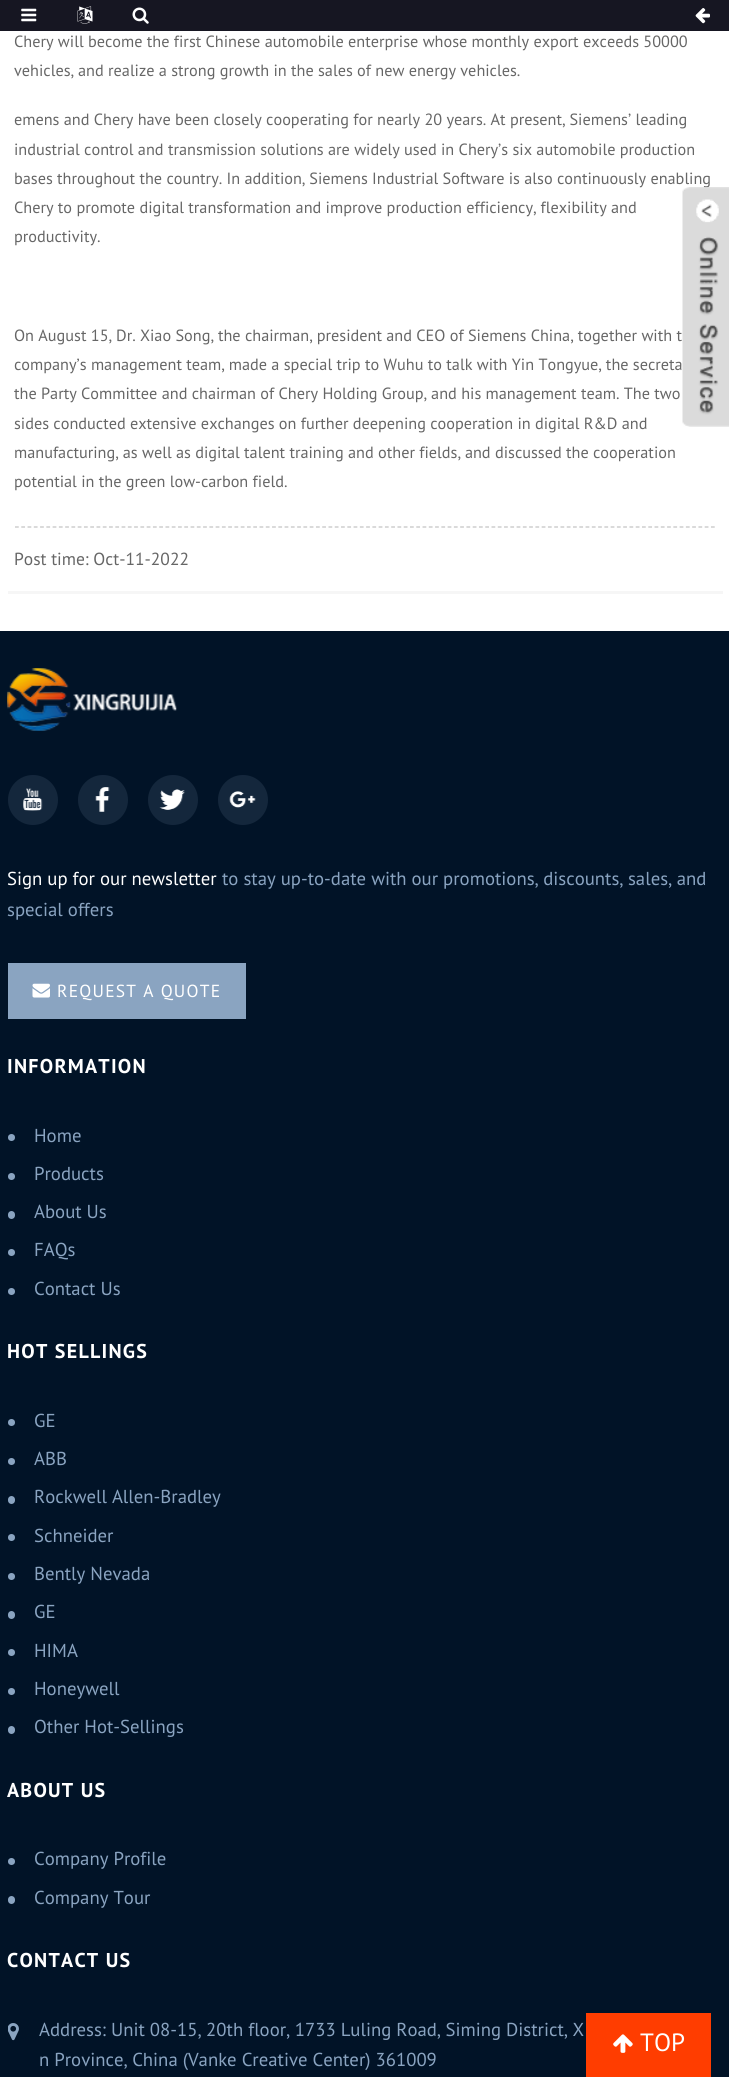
import math
import cairocffi as cairo

surface = cairo.ImageSurface(cairo.FORMAT_RGB24, 729, 2077)
cr = cairo.Context(surface)
options = cairo.FontOptions()
options.set_hint_metrics(cairo.HINT_METRICS_OFF)
options.set_hint_style(cairo.HINT_STYLE_NONE)
cr.set_font_options(options)
cr.set_miter_limit(4)


def use_color(code):
    cr.set_source_rgb(*(v / 255 for v in bytes.fromhex(code[-6:])))


def spaced_text(x, y, s, letter, word):
    cr.move_to(x, y)
    for ch in s:
        cr.show_text(ch)
        cr.rel_move_to(letter + word * (ch == ' '), 0)


def round_rect(x, y, w, h, r):
    cr.new_sub_path()
    for i, (u, v) in enumerate([(x + w - r, y + h - r), (x + r, y + h - r), (x + r, y + r), (x + w - r, y + r)]):
        cr.arc(u, v, r, i * math.pi / 2, (i + 1) * math.pi / 2)
    cr.close_path()


def picture(path, x, y, w, h):
    cr.save()
    cr.set_source_surface(cairo.ImageSurface.create_from_png(path), x, y)
    cr.rectangle(x, y, w, h)
    cr.fill()
    cr.restore()


use_color("#ffffff")
cr.paint()
use_color("#161622")
cr.rectangle(0, 0, 729, 31)
cr.fill()
picture("img1.png", 21, 8, 16, 14)
picture("img2.png", 77, 6, 16, 18)
picture("img3.png", 132, 7, 17, 17)
picture("img4.png", 695, 8, 15, 16)
use_color("#f6f6f6")
cr.rectangle(8, 591, 715, 3)
cr.fill()
cr.select_font_face("PT Sans")
cr.set_font_size(16.25)
use_color("#666666")
cr.move_to(14, 47)
cr.show_text("Chery will become the first Chinese automobile enterprise whose monthly export exceeds 50000")
cr.move_to(14, 76)
cr.show_text("vehicles, and realize a strong growth in the sales of new energy vehicles.")
cr.move_to(14, 125)
cr.show_text("emens and Chery have been closely cooperating for nearly 20 years. At present, Siemens’ leading")
cr.move_to(14, 155)
cr.show_text("industrial control and transmission solutions are widely used in Chery’s six automobile production")
cr.move_to(14, 184)
cr.show_text("bases throughout the country. In addition, Siemens Industrial Software is also continuously enabling")
cr.move_to(14, 213)
cr.show_text("Chery to promote digital transformation and improve production efficiency, flexibility and")
cr.move_to(14, 242)
cr.show_text("productivity.")
cr.move_to(14, 341)
cr.show_text("On August 15, Dr. Xiao Song, the chairman, president and CEO of Siemens China, together with t")
cr.move_to(14, 370)
cr.show_text("company’s management team, made a special trip to Wuhu to talk with Yin Tongyue, the secreta")
cr.move_to(14, 399)
cr.show_text("the Party Committee and chairman of Chery Holding Group, and his management team. The two")
cr.move_to(14, 429)
cr.show_text("sides conducted extensive exchanges on further deepening cooperation in digital R&D and")
cr.move_to(14, 458)
cr.show_text("manufacturing, as well as digital talent training and other fields, and discussed the cooperation")
cr.move_to(14, 487)
cr.show_text("potential in the green low-carbon field.")
cr.new_path()
cr.move_to(15, 527)
cr.line_to(715, 527)
use_color("#c1c1c1")
cr.set_line_width(1.2)
cr.set_dash([3.75, 2.52])
cr.stroke()
cr.set_font_size(17.5)
use_color("#666666")
cr.move_to(14, 565)
cr.show_text("Post time: Oct-11-2022")
picture("img5.png", 682, 187, 47, 240)
use_color("#011327")
cr.rectangle(0, 631, 729, 1446)
cr.fill()
picture("img6.png", 7, 668, 170, 63)
use_color("#14273c")
cr.arc(33, 800, 25, 0, 2 * math.pi)
cr.fill()
picture("img7.png", 23, 788, 20, 23)
cr.arc(103, 800, 25, 0, 2 * math.pi)
cr.fill()
picture("img8.png", 95, 787, 15, 25)
cr.arc(173, 800, 25, 0, 2 * math.pi)
cr.fill()
picture("img9.png", 159, 789, 26, 21)
cr.arc(243, 800, 25, 0, 2 * math.pi)
cr.fill()
picture("img10.png", 229, 791, 27, 17)
cr.set_font_size(18.75)
use_color("#ffffff")
cr.move_to(7, 885)
cr.show_text("Sign up for our newsletter")
use_color("#8aa4c1")
cr.move_to(222, 885)
cr.show_text("to stay up-to-date with our promotions, discounts, sales, and")
cr.move_to(7, 916)
cr.show_text("special offers")
cr.rectangle(8, 963, 238, 56)
cr.fill()
picture("img11.png", 32, 983, 18, 15)
cr.set_font_size(17.5)
use_color("#ffffff")
spaced_text(57, 997, "REQUEST A QUOTE", 1.25, 0)
cr.select_font_face("PT Sans", cairo.FONT_SLANT_NORMAL, cairo.FONT_WEIGHT_BOLD)
cr.set_font_size(20)
spaced_text(7, 1073, "INFORMATION", 1.25, 0)
use_color("#8aa4c1")
cr.new_path()
cr.arc(11.5, 1137.5, 3.5, 0, 2 * math.pi)
cr.fill()
cr.select_font_face("PT Sans")
cr.set_font_size(18.75)
cr.move_to(34, 1142)
cr.show_text("Home")
cr.new_path()
cr.arc(11.5, 1176.5, 3.5, 0, 2 * math.pi)
cr.fill()
cr.move_to(34, 1180)
cr.show_text("Products")
round_rect(8, 1211, 7, 8, 3.5)
cr.fill()
cr.move_to(34, 1218)
cr.show_text("About Us")
cr.new_path()
cr.arc(11.5, 1252.5, 3.5, 0, 2 * math.pi)
cr.fill()
cr.move_to(34, 1256)
cr.show_text("FAQs")
cr.new_path()
cr.arc(11.5, 1291.5, 3.5, 0, 2 * math.pi)
cr.fill()
cr.move_to(34, 1295)
cr.show_text("Contact Us")
cr.select_font_face("PT Sans", cairo.FONT_SLANT_NORMAL, cairo.FONT_WEIGHT_BOLD)
cr.set_font_size(20)
use_color("#ffffff")
spaced_text(7, 1358, "HOT SELLINGS", 1.25, 0)
use_color("#8aa4c1")
cr.new_path()
cr.arc(11.5, 1422.5, 3.5, 0, 2 * math.pi)
cr.fill()
cr.select_font_face("PT Sans")
cr.set_font_size(18.75)
cr.move_to(34, 1427)
cr.show_text("GE")
cr.new_path()
cr.arc(11.5, 1461.5, 3.5, 0, 2 * math.pi)
cr.fill()
cr.move_to(34, 1465)
cr.show_text("ABB")
round_rect(8, 1496, 7, 8, 3.5)
cr.fill()
cr.move_to(34, 1503)
cr.show_text("Rockwell Allen-Bradley")
cr.new_path()
cr.arc(11.5, 1537.5, 3.5, 0, 2 * math.pi)
cr.fill()
cr.move_to(34, 1542)
cr.show_text("Schneider")
cr.new_path()
cr.arc(11.5, 1576.5, 3.5, 0, 2 * math.pi)
cr.fill()
cr.move_to(34, 1580)
cr.show_text("Bently Nevada")
round_rect(8, 1611, 7, 8, 3.5)
cr.fill()
cr.move_to(34, 1618)
cr.show_text("GE")
cr.new_path()
cr.arc(11.5, 1652.5, 3.5, 0, 2 * math.pi)
cr.fill()
cr.move_to(34, 1657)
cr.show_text("HIMA")
cr.new_path()
cr.arc(11.5, 1691.5, 3.5, 0, 2 * math.pi)
cr.fill()
cr.move_to(34, 1695)
cr.show_text("Honeywell")
round_rect(8, 1726, 7, 8, 3.5)
cr.fill()
cr.move_to(34, 1733)
cr.show_text("Other Hot-Sellings")
cr.select_font_face("PT Sans", cairo.FONT_SLANT_NORMAL, cairo.FONT_WEIGHT_BOLD)
cr.set_font_size(20)
use_color("#ffffff")
spaced_text(7, 1797, "ABOUT US", 1.25, 0)
use_color("#8aa4c1")
cr.new_path()
cr.arc(11.5, 1861.5, 3.5, 0, 2 * math.pi)
cr.fill()
cr.select_font_face("PT Sans")
cr.set_font_size(18.75)
cr.move_to(34, 1865)
cr.show_text("Company Profile")
round_rect(8, 1896, 7, 8, 3.5)
cr.fill()
cr.move_to(34, 1904)
cr.show_text("Company Tour")
cr.select_font_face("PT Sans", cairo.FONT_SLANT_NORMAL, cairo.FONT_WEIGHT_BOLD)
cr.set_font_size(20)
use_color("#ffffff")
spaced_text(7, 1967, "CONTACT US", 1.25, 0)
picture("img12.png", 8, 2023, 11, 18)
cr.select_font_face("PT Sans")
cr.set_font_size(18.75)
use_color("#8aa4c1")
cr.move_to(39, 2036)
cr.show_text("Address: Unit 08-15, 20th floor, 1733 Luling Road, Siming District, X")
cr.move_to(39, 2066)
cr.show_text("n Province, China (Vanke Creative Center) 361009")
use_color("#ff3d00")
cr.rectangle(586, 2013, 125, 64)
cr.fill()
picture("img13.png", 613, 2034, 20, 19)
cr.set_font_size(25)
use_color("#ffffff")
cr.move_to(640, 2051)
cr.show_text("TOP")
surface.write_to_png("result.png")
